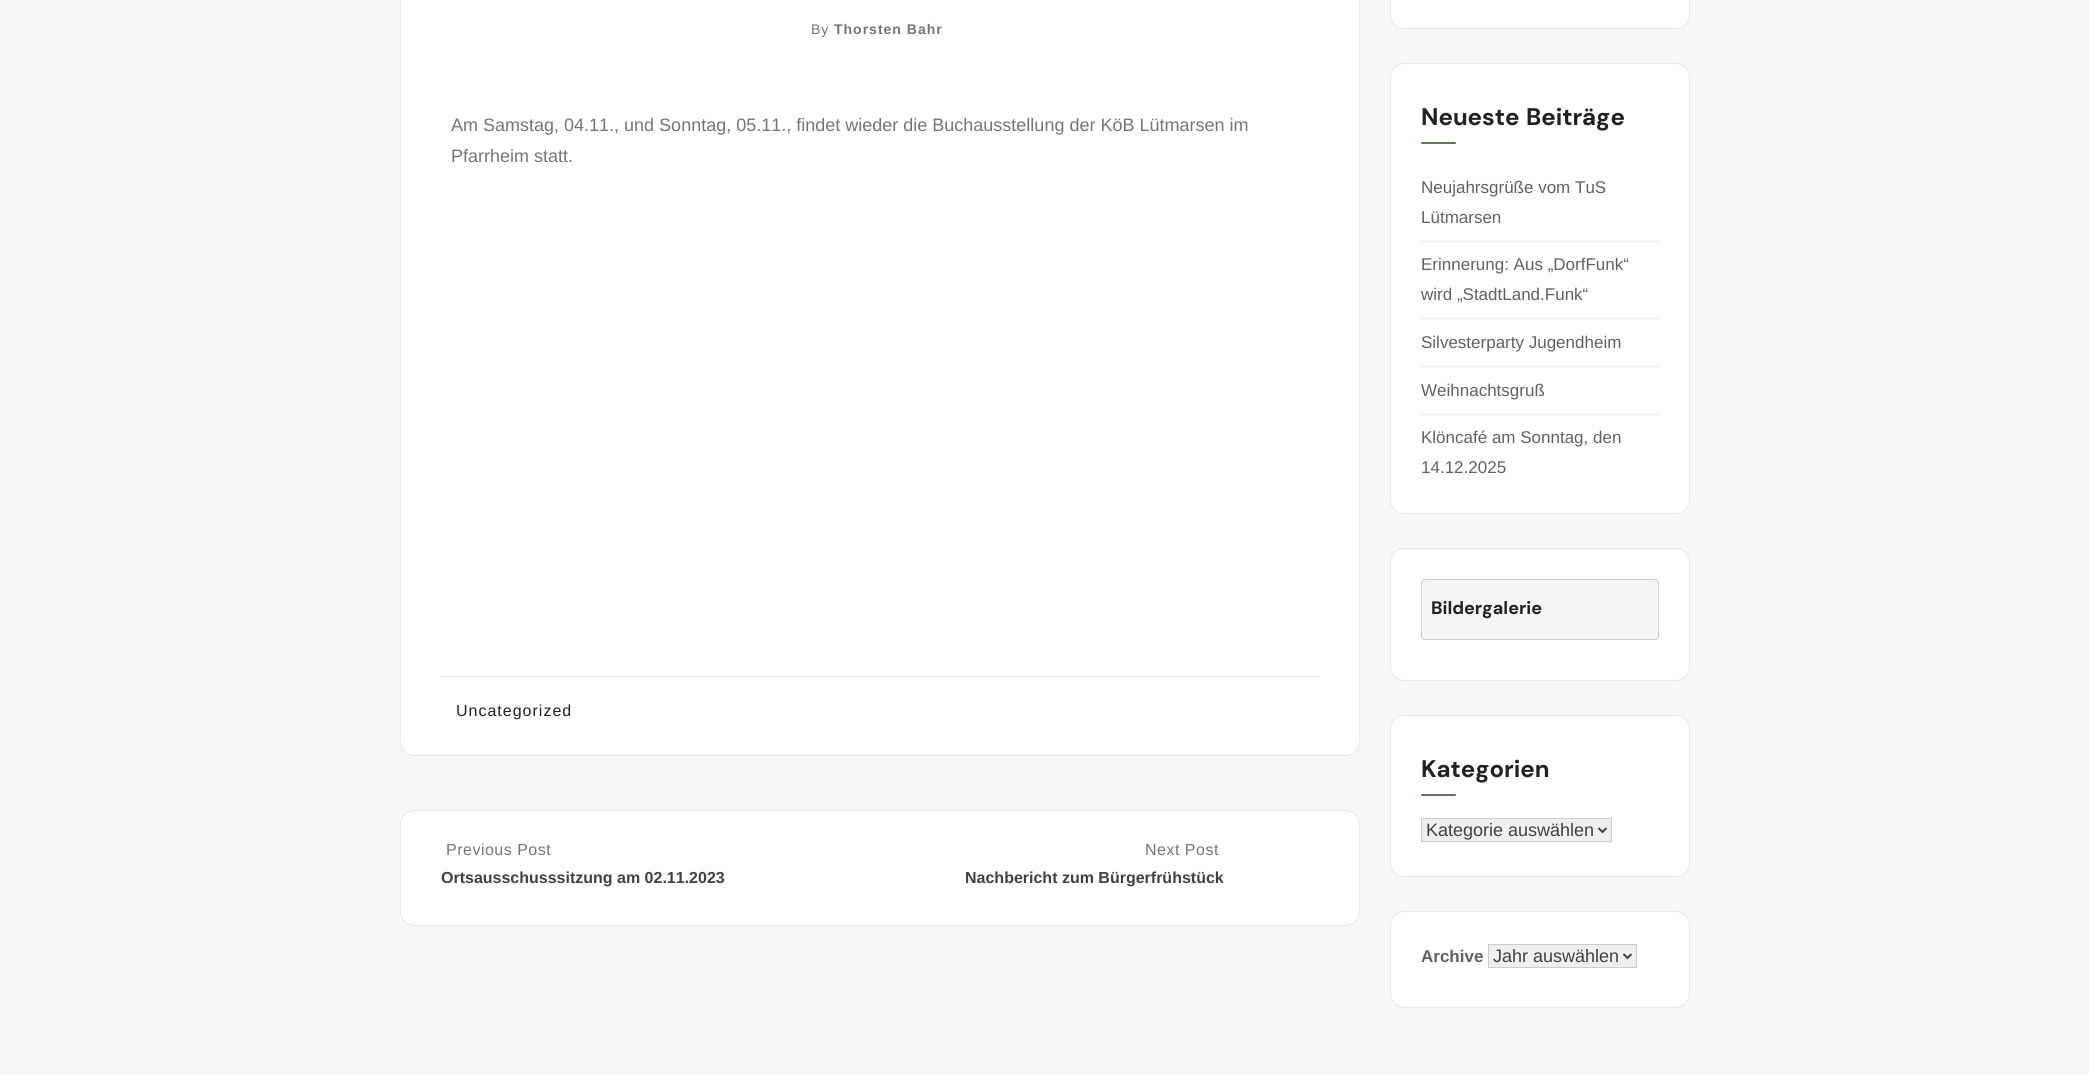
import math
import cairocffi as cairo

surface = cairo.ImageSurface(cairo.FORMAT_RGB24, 2089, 1075)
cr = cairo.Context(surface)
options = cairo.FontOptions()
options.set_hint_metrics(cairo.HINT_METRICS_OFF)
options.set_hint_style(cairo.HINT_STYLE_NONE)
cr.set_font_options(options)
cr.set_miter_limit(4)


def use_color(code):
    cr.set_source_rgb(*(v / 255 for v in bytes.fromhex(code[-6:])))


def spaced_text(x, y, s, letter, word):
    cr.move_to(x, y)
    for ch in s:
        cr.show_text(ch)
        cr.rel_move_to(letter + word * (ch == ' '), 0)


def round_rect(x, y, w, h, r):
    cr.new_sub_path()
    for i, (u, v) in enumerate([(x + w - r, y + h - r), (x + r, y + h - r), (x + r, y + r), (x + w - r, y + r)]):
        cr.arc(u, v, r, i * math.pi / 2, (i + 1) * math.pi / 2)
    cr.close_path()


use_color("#f8f8f8")
cr.paint()
use_color("#ffffff")
round_rect(400, -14, 960, 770, 14)
cr.fill()
round_rect(400.5, -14.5, 959, 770, 13.5)
cr.set_source_rgba(0, 0, 0, 0.09)
cr.set_line_width(1)
cr.stroke()
cr.select_font_face("Liberation Sans")
cr.set_font_size(14)
use_color("#757575")
spaced_text(811, 34, "By", 1, 0)
cr.select_font_face("Liberation Sans", cairo.FONT_SLANT_NORMAL, cairo.FONT_WEIGHT_BOLD)
spaced_text(834, 34, "Thorsten Bahr", 1, 0)
cr.select_font_face("Liberation Sans")
cr.set_font_size(18)
cr.move_to(451, 131)
cr.show_text("Am Samstag, 04.11., und Sonntag, 05.11., findet wieder die Buchausstellung der KöB Lütmarsen im")
cr.move_to(451, 162)
cr.show_text("Pfarrheim statt.")
use_color("#e9e9e9")
cr.rectangle(441, 676, 878, 1)
cr.fill()
cr.set_font_size(16)
use_color("#212121")
spaced_text(456, 716, "Uncategorized", 1, 0)
use_color("#ffffff")
round_rect(400, 810, 960, 116, 14)
cr.fill()
round_rect(400.5, 810.5, 959, 115, 13.5)
cr.set_source_rgba(0, 0, 0, 0.09)
cr.stroke()
use_color("#757575")
spaced_text(446, 855, "Previous Post", 0.5, 0)
cr.select_font_face("Liberation Sans", cairo.FONT_SLANT_NORMAL, cairo.FONT_WEIGHT_BOLD)
use_color("#414141")
cr.move_to(441, 883)
cr.show_text("Ortsausschusssitzung am 02.11.2023")
cr.select_font_face("Liberation Sans")
use_color("#757575")
spaced_text(1145, 855, "Next Post", 0.5, 0)
cr.select_font_face("Liberation Sans", cairo.FONT_SLANT_NORMAL, cairo.FONT_WEIGHT_BOLD)
use_color("#414141")
cr.move_to(965, 883)
cr.show_text("Nachbericht zum Bürgerfrühstück")
use_color("#ffffff")
round_rect(1390, -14, 300, 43, 14)
cr.fill()
round_rect(1390.5, -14.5, 299, 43, 13.5)
cr.set_source_rgba(0, 0, 0, 0.09)
cr.stroke()
use_color("#ffffff")
round_rect(1390, 63, 300, 451, 14)
cr.fill()
round_rect(1390.5, 63.5, 299, 450, 13.5)
cr.set_source_rgba(0, 0, 0, 0.09)
cr.stroke()
cr.select_font_face("DM Sans", cairo.FONT_SLANT_NORMAL, cairo.FONT_WEIGHT_BOLD)
cr.set_font_size(24)
use_color("#212121")
spaced_text(1421, 125, "Neueste Beiträge", 0, 1)
use_color("#5c7a58")
round_rect(1421, 142, 35, 2, 1)
cr.fill()
use_color("#e9e9e9")
cr.rectangle(1421, 241, 238, 1)
cr.fill()
cr.select_font_face("Liberation Sans")
cr.set_font_size(17)
use_color("#616161")
cr.move_to(1421, 193)
cr.show_text("Neujahrsgrüße vom TuS")
cr.move_to(1421, 223)
cr.show_text("Lütmarsen")
use_color("#e9e9e9")
cr.rectangle(1421, 318, 238, 1)
cr.fill()
use_color("#616161")
cr.move_to(1421, 270)
cr.show_text("Erinnerung: Aus „DorfFunk“")
cr.move_to(1421, 300)
cr.show_text("wird „StadtLand.Funk“")
use_color("#e9e9e9")
cr.rectangle(1421, 366, 238, 1)
cr.fill()
use_color("#616161")
cr.move_to(1421, 348)
cr.show_text("Silvesterparty Jugendheim")
use_color("#e9e9e9")
cr.rectangle(1421, 414, 238, 1)
cr.fill()
use_color("#616161")
cr.move_to(1421, 396)
cr.show_text("Weihnachtsgruß")
cr.move_to(1421, 443)
cr.show_text("Klöncafé am Sonntag, den")
cr.move_to(1421, 473)
cr.show_text("14.12.2025")
use_color("#ffffff")
round_rect(1390, 548, 300, 133, 14)
cr.fill()
round_rect(1390.5, 548.5, 299, 132, 13.5)
cr.set_source_rgba(0, 0, 0, 0.09)
cr.stroke()
use_color("#f5f5f5")
round_rect(1421.5, 579.5, 237, 60, 3.5)
cr.fill_preserve()
use_color("#cccccc")
cr.stroke()
cr.select_font_face("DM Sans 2", cairo.FONT_SLANT_NORMAL, cairo.FONT_WEIGHT_BOLD)
cr.set_font_size(18)
use_color("#212121")
cr.move_to(1431, 614)
cr.show_text("Bildergalerie")
use_color("#ffffff")
round_rect(1390, 715, 300, 162, 14)
cr.fill()
round_rect(1390.5, 715.5, 299, 161, 13.5)
cr.set_source_rgba(0, 0, 0, 0.09)
cr.stroke()
cr.select_font_face("DM Sans", cairo.FONT_SLANT_NORMAL, cairo.FONT_WEIGHT_BOLD)
cr.set_font_size(24)
use_color("#212121")
cr.move_to(1421, 777)
cr.show_text("Kategorien")
use_color("#5c7a58")
round_rect(1421, 794, 35, 2, 1)
cr.fill()
use_color("#efefef")
cr.rectangle(1421.5, 818.5, 190, 23)
cr.fill_preserve()
use_color("#cccccc")
cr.stroke()
cr.new_path()
cr.move_to(1598.5, 828)
cr.line_to(1602.5, 832)
cr.line_to(1606.5, 828)
use_color("#414141")
cr.set_line_width(2)
cr.stroke()
cr.select_font_face("Liberation Sans")
cr.set_font_size(18)
cr.move_to(1426, 836)
cr.show_text("Kategorie auswählen")
use_color("#ffffff")
round_rect(1390, 911, 300, 97, 14)
cr.fill()
round_rect(1390.5, 911.5, 299, 96, 13.5)
cr.set_source_rgba(0, 0, 0, 0.09)
cr.set_line_width(1)
cr.stroke()
cr.select_font_face("Liberation Sans", cairo.FONT_SLANT_NORMAL, cairo.FONT_WEIGHT_BOLD)
cr.set_font_size(17)
use_color("#616161")
cr.move_to(1421, 962)
cr.show_text("Archive")
use_color("#efefef")
cr.rectangle(1488.5, 944.5, 148, 23)
cr.fill_preserve()
use_color("#cccccc")
cr.stroke()
cr.new_path()
cr.move_to(1623.5, 954)
cr.line_to(1627.5, 958)
cr.line_to(1631.5, 954)
use_color("#414141")
cr.set_line_width(2)
cr.stroke()
cr.select_font_face("Liberation Sans")
cr.set_font_size(18)
cr.move_to(1493, 962)
cr.show_text("Jahr auswählen")
surface.write_to_png("result.png")
